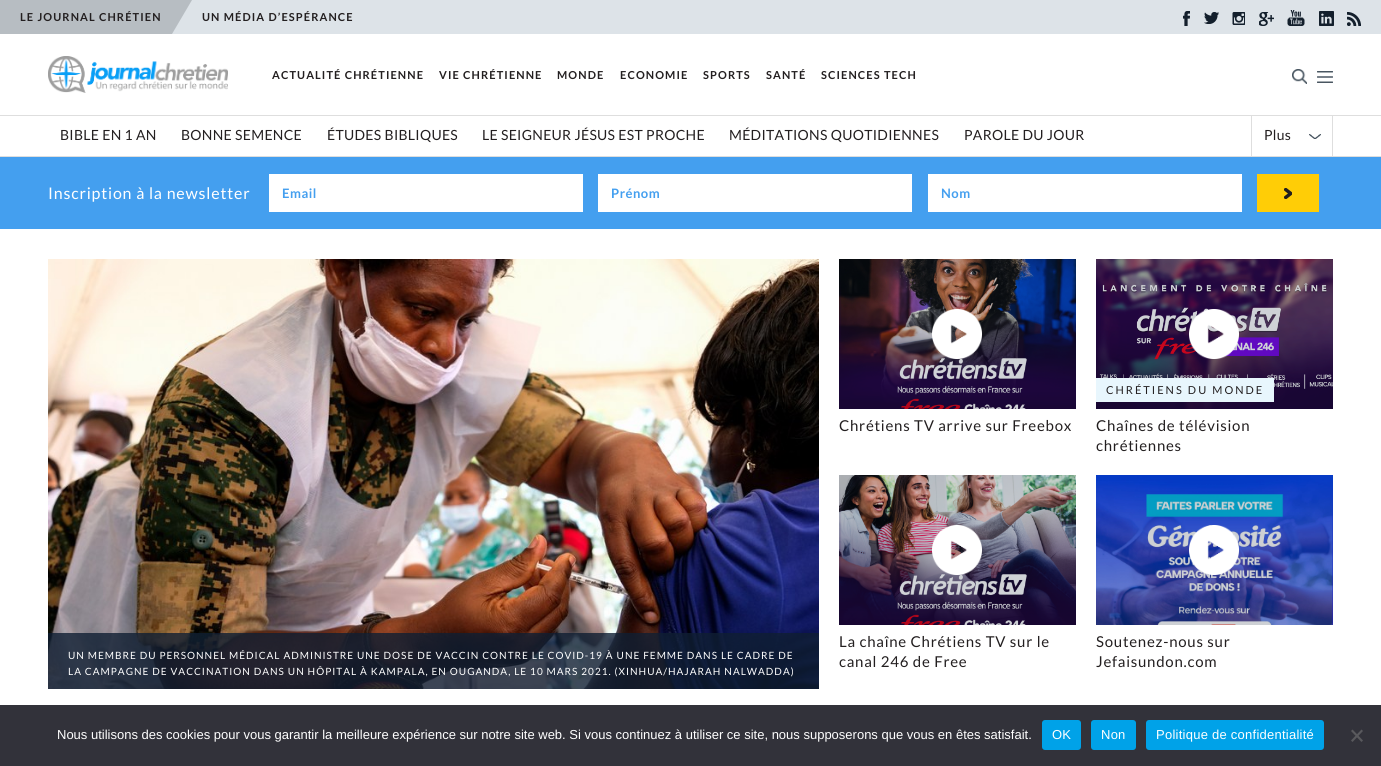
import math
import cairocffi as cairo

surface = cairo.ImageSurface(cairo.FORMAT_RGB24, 1381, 766)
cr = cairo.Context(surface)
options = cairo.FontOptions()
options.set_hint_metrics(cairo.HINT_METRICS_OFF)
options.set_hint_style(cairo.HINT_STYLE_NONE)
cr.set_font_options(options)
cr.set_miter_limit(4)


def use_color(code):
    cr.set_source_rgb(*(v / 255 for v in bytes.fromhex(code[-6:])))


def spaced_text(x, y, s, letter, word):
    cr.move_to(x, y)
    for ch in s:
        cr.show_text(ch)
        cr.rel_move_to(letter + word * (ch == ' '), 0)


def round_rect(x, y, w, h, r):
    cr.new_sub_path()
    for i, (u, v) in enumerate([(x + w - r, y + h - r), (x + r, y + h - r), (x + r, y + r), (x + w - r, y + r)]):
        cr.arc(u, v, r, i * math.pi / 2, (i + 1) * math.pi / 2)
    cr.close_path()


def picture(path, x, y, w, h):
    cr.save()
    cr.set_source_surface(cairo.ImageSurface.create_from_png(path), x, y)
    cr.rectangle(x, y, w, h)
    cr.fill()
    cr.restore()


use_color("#ffffff")
cr.paint()
use_color("#dde3e8")
cr.rectangle(172, 0, 1209, 34)
cr.fill()
use_color("#b7bdc2")
cr.rectangle(0, 0, 172, 34)
cr.fill()
cr.select_font_face("Lato", cairo.FONT_SLANT_NORMAL, cairo.FONT_WEIGHT_BOLD)
cr.set_font_size(11)
use_color("#231f20")
spaced_text(20, 21, "LE JOURNAL CHRÉTIEN", 1.1, 0)
use_color("#b7bdc2")
cr.new_path()
cr.move_to(172, 0)
cr.line_to(192, 0)
cr.line_to(172, 34)
cr.close_path()
cr.fill()
use_color("#231f20")
spaced_text(202, 21, "UN MÉDIA D’ESPÉRANCE", 1.1, 0)
picture("img1.png", 1183, 11, 7, 15)
picture("img2.png", 1204, 12, 15, 12)
picture("img3.png", 1232, 12, 13, 13)
picture("img4.png", 1259, 12, 15, 14)
picture("img5.png", 1287, 10, 18, 16)
picture("img6.png", 1319, 11, 15, 15)
picture("img7.png", 1347, 12, 14, 14)
picture("img8.png", 48, 56, 180, 37)
spaced_text(272, 79, "ACTUALITÉ CHRÉTIENNE", 1.1, 0)
spaced_text(439, 79, "VIE CHRÉTIENNE", 1.1, 0)
spaced_text(557, 79, "MONDE", 1.1, 0)
spaced_text(620, 79, "ECONOMIE", 1.1, 0)
spaced_text(703, 79, "SPORTS", 1.1, 0)
spaced_text(766, 79, "SANTÉ", 1.1, 0)
spaced_text(821, 79, "SCIENCES TECH", 1.1, 0)
picture("img9.png", 1292, 69, 15, 15)
picture("img10.png", 1317, 71, 16, 12)
use_color("#dedede")
cr.rectangle(0, 115, 1381, 1)
cr.fill()
cr.rectangle(0, 156, 1381, 1)
cr.fill()
cr.select_font_face("Lato")
cr.set_font_size(14)
use_color("#231f20")
spaced_text(60, 140, "BIBLE EN 1 AN", 0.3, 0)
spaced_text(181, 140, "BONNE SEMENCE", 0.3, 0)
spaced_text(327, 140, "ÉTUDES BIBLIQUES", 0.3, 0)
spaced_text(482, 140, "LE SEIGNEUR JÉSUS EST PROCHE", 0.3, 0)
spaced_text(729, 140, "MÉDITATIONS QUOTIDIENNES", 0.3, 0)
spaced_text(964, 140, "PAROLE DU JOUR", 0.3, 0)
use_color("#dedede")
cr.rectangle(1332, 116, 1, 40)
cr.fill()
cr.rectangle(1251, 116, 1, 40)
cr.fill()
use_color("#231f20")
spaced_text(1264, 140, "Plus", 0.3, 0)
picture("img11.png", 1309, 134, 12, 5)
use_color("#449fef")
cr.rectangle(0, 157, 1381, 72)
cr.fill()
cr.set_font_size(16)
use_color("#ffffff")
spaced_text(48, 199, "Inscription à la newsletter", 0.8, 0)
cr.rectangle(269, 174, 314, 38)
cr.fill()
cr.select_font_face("Lato", cairo.FONT_SLANT_NORMAL, cairo.FONT_WEIGHT_BOLD)
cr.set_font_size(13)
use_color("#449fef")
spaced_text(282, 198, "Email", 0.5, 0)
use_color("#ffffff")
cr.rectangle(598, 174, 314, 38)
cr.fill()
use_color("#449fef")
spaced_text(611, 198, "Prénom", 0.5, 0)
use_color("#ffffff")
cr.rectangle(928, 174, 314, 38)
cr.fill()
use_color("#449fef")
spaced_text(941, 198, "Nom", 0.5, 0)
use_color("#ffcd06")
cr.rectangle(1257, 174, 62, 38)
cr.fill()
picture("img12.png", 1284, 188, 8, 11)
picture("img13.png", 48, 259, 771, 430)
cr.set_source_rgba(0.059, 0.118, 0.196, 0.8)
cr.rectangle(48, 633, 771, 56)
cr.fill()
cr.select_font_face("Lato")
cr.set_font_size(10)
use_color("#ffffff")
spaced_text(68, 659, "UN MEMBRE DU PERSONNEL MÉDICAL ADMINISTRE UNE DOSE DE VACCIN CONTRE LE COVID-19 À UNE FEMME DANS LE CADRE DE", 1, 0)
spaced_text(68, 675, "LA CAMPAGNE DE VACCINATION DANS UN HÔPITAL À KAMPALA, EN OUGANDA, LE 10 MARS 2021. (XINHUA/HAJARAH NALWADDA)", 1, 0)
picture("img14.png", 839, 259, 237, 150)
picture("img15.png", 932, 309, 50, 50)
cr.set_font_size(15)
use_color("#231f20")
spaced_text(839, 431, "Chrétiens TV arrive sur Freebox", 0.75, 0)
picture("img16.png", 1096, 259, 237, 150)
picture("img17.png", 1189, 309, 50, 50)
use_color("#e8f6fd")
cr.rectangle(1096, 378, 178, 24)
cr.fill()
cr.set_font_size(11)
use_color("#231f20")
spaced_text(1106, 394, "CHRÉTIENS DU MONDE", 2, 0)
cr.set_font_size(15)
spaced_text(1096, 431, "Chaînes de télévision", 0.75, 0)
spaced_text(1096, 451, "chrétiennes", 0.75, 0)
picture("img18.png", 839, 475, 237, 150)
picture("img19.png", 932, 525, 50, 50)
spaced_text(839, 647, "La chaîne Chrétiens TV sur le", 0.75, 0)
spaced_text(839, 667, "canal 246 de Free", 0.75, 0)
picture("img20.png", 1096, 475, 237, 150)
picture("img21.png", 1189, 525, 50, 50)
spaced_text(1096, 647, "Soutenez-nous sur", 0.75, 0)
spaced_text(1096, 667, "Jefaisundon.com", 0.75, 0)
use_color("#32323a")
cr.rectangle(0, 705, 1381, 61)
cr.fill()
cr.select_font_face("Liberation Sans")
cr.set_font_size(13)
use_color("#ffffff")
cr.move_to(57, 739)
cr.show_text("Nous utilisons des cookies pour vous garantir la meilleure expérience sur notre site web. Si vous continuez à utiliser ce site, nous supposerons que vous en êtes satisfait.")
use_color("#00a2e8")
round_rect(1042, 720, 39, 30, 3)
cr.fill()
use_color("#ffffff")
spaced_text(1052, 739, "OK", 0.25, 0)
use_color("#00a2e8")
round_rect(1091, 720, 45, 30, 3)
cr.fill()
use_color("#ffffff")
spaced_text(1101, 739, "Non", 0.25, 0)
use_color("#00a2e8")
round_rect(1146, 720, 178, 30, 3)
cr.fill()
use_color("#ffffff")
spaced_text(1156, 739, "Politique de confidentialité", 0.25, 0)
use_color("#59595d")
cr.new_path()
cr.move_to(1361.5, 729.5)
cr.line_to(1363, 731)
cr.line_to(1352.5, 742)
cr.line_to(1351, 740.5)
cr.close_path()
cr.fill()
cr.new_path()
cr.move_to(1351, 731)
cr.line_to(1352.5, 729.5)
cr.line_to(1363, 740.5)
cr.line_to(1361.5, 742)
cr.close_path()
cr.fill()
surface.write_to_png("result.png")
